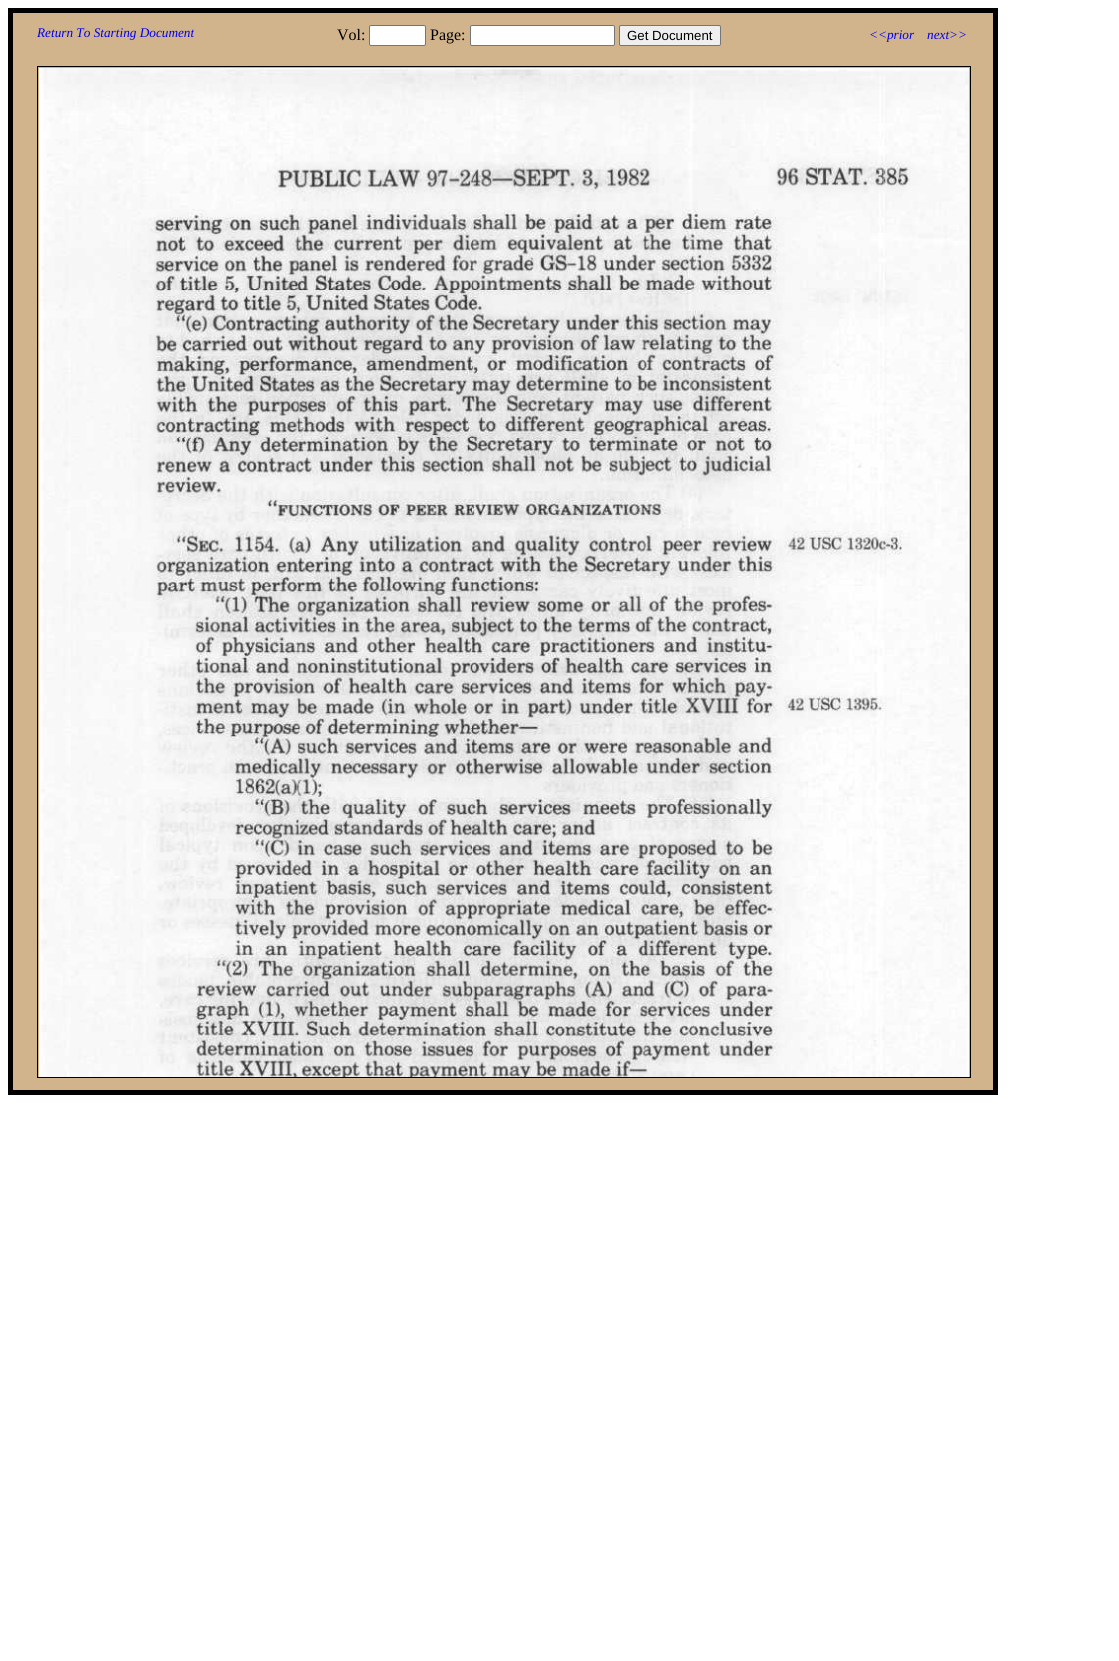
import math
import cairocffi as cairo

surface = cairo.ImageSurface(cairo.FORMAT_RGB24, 1119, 1661)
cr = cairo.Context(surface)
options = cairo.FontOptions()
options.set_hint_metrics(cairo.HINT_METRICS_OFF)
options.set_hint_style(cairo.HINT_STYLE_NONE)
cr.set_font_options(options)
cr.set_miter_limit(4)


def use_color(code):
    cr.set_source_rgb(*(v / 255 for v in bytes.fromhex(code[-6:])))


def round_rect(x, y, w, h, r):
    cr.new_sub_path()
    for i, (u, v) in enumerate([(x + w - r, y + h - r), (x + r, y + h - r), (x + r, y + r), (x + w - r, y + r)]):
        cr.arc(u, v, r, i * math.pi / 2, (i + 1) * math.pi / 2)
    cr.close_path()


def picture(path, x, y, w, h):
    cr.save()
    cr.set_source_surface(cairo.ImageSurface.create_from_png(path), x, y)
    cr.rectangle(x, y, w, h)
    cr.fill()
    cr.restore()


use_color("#ffffff")
cr.paint()
use_color("#d2b48c")
cr.rectangle(10.5, 10.5, 985, 1082)
cr.fill_preserve()
use_color("#000000")
cr.set_line_width(5)
cr.stroke()
cr.select_font_face("Liberation Serif", cairo.FONT_SLANT_ITALIC)
cr.set_font_size(13.25)
use_color("#0000ee")
cr.move_to(37, 37)
cr.show_text("Return To Starting Document")
cr.select_font_face("Liberation Serif")
cr.set_font_size(16)
use_color("#000000")
cr.move_to(337, 40)
cr.show_text("Vol:")
use_color("#ffffff")
round_rect(369.5, 25.5, 56, 20, 1.5)
cr.fill_preserve()
use_color("#767676")
cr.set_line_width(1)
cr.stroke()
use_color("#000000")
cr.move_to(430, 40)
cr.show_text("Page:")
use_color("#ffffff")
round_rect(470.5, 25.5, 144, 20, 1.5)
cr.fill_preserve()
use_color("#767676")
cr.stroke()
use_color("#efefef")
round_rect(619.5, 25.5, 101, 20, 1.5)
cr.fill_preserve()
use_color("#767676")
cr.stroke()
cr.select_font_face("Liberation Sans")
cr.set_font_size(13.25)
use_color("#000000")
cr.move_to(627, 40)
cr.show_text("Get Document")
cr.select_font_face("Liberation Serif", cairo.FONT_SLANT_ITALIC)
use_color("#0000ee")
cr.move_to(869, 39)
cr.show_text("<<prior")
cr.move_to(927, 39)
cr.show_text("next>>")
cr.rectangle(37.5, 66.5, 933, 1011)
use_color("#000000")
cr.stroke()
picture("img1.png", 39, 68, 930, 1009)
surface.write_to_png("result.png")
